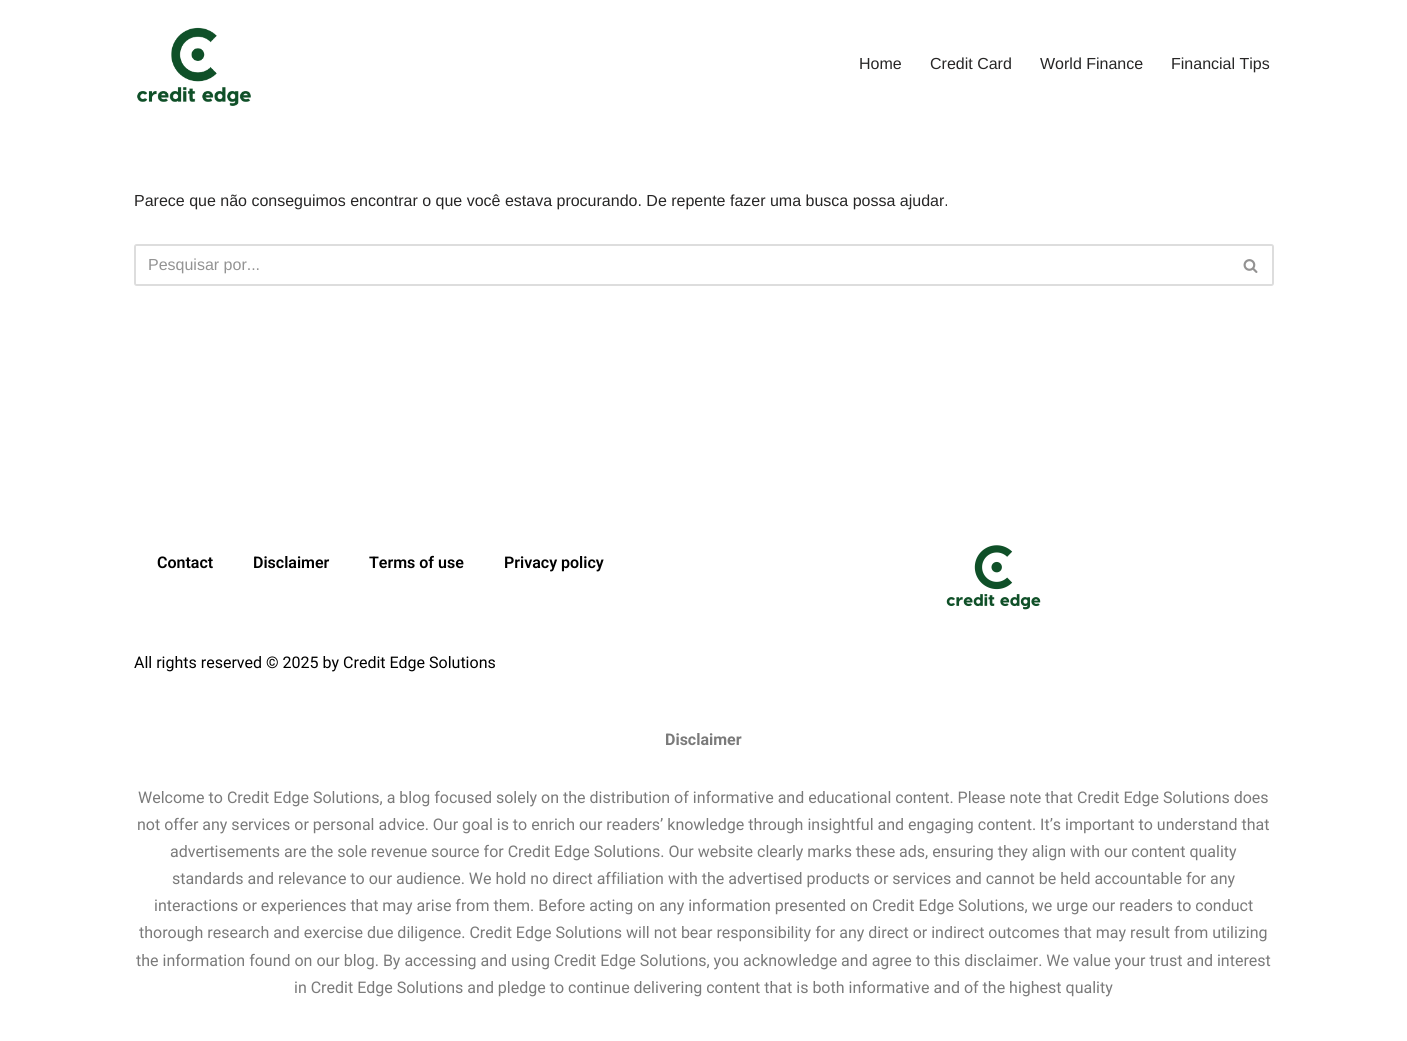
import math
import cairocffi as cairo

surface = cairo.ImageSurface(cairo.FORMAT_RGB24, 1407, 1041)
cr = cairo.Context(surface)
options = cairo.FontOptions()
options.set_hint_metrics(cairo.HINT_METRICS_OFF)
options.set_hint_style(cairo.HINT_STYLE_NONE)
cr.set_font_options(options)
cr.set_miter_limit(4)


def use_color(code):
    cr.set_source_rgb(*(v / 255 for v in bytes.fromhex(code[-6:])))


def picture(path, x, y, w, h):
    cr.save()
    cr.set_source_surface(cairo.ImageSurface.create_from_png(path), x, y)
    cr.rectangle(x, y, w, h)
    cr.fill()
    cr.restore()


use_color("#ffffff")
cr.paint()
picture("img1.png", 137, 27, 114, 79)
cr.select_font_face("Liberation Sans")
cr.set_font_size(16)
use_color("#272626")
cr.move_to(859, 69)
cr.show_text("Home")
cr.move_to(930, 69)
cr.show_text("Credit Card")
cr.move_to(1040, 69)
cr.show_text("World Finance")
cr.move_to(1171, 69)
cr.show_text("Financial Tips")
cr.move_to(134, 206)
cr.show_text("Parece que não conseguimos encontrar o que você estava procurando. De repente fazer uma busca possa ajudar.")
use_color("#dddddd")
cr.set_fill_rule(cairo.FILL_RULE_EVEN_ODD)
cr.new_path()
cr.move_to(137, 244)
cr.line_to(1229, 244)
cr.line_to(1229, 286)
cr.line_to(137, 286)
cr.curve_to(135, 286, 134, 285, 134, 283)
cr.line_to(134, 247)
cr.curve_to(134, 245, 135, 244, 137, 244)
cr.close_path()
cr.move_to(137, 246)
cr.line_to(1229, 246)
cr.line_to(1229, 284)
cr.line_to(137, 284)
cr.curve_to(136, 284, 136, 284, 136, 283)
cr.line_to(136, 247)
cr.curve_to(136, 246, 136, 246, 137, 246)
cr.close_path()
cr.fill()
use_color("#939393")
cr.move_to(148, 270)
cr.show_text("Pesquisar por...")
use_color("#dddddd")
cr.new_path()
cr.move_to(1229, 244)
cr.line_to(1271, 244)
cr.curve_to(1273, 244, 1274, 245, 1274, 247)
cr.line_to(1274, 283)
cr.curve_to(1274, 285, 1273, 286, 1271, 286)
cr.line_to(1229, 286)
cr.close_path()
cr.move_to(1229, 246)
cr.line_to(1271, 246)
cr.curve_to(1272, 246, 1272, 246, 1272, 247)
cr.line_to(1272, 283)
cr.curve_to(1272, 284, 1272, 284, 1271, 284)
cr.line_to(1229, 284)
cr.close_path()
cr.fill()
picture("img2.png", 1243, 259, 15, 14)
cr.select_font_face("Roboto SemiBold")
use_color("#000000")
cr.move_to(157, 568)
cr.show_text("Contact")
cr.move_to(253, 568)
cr.show_text("Disclaimer")
cr.move_to(369, 568)
cr.show_text("Terms of use")
cr.move_to(504, 568)
cr.show_text("Privacy policy")
picture("img3.png", 946, 545, 95, 65)
cr.select_font_face("Roboto")
cr.move_to(134, 668)
cr.show_text("All rights reserved © 2025 by Credit Edge Solutions")
cr.select_font_face("Roboto", cairo.FONT_SLANT_NORMAL, cairo.FONT_WEIGHT_BOLD)
use_color("#7a7a7a")
cr.move_to(665, 745)
cr.show_text("Disclaimer")
cr.select_font_face("Roboto")
cr.move_to(138, 803)
cr.show_text("Welcome to Credit Edge Solutions, a blog focused solely on the distribution of informative and educational content. Please note that Credit Edge Solutions does")
cr.move_to(137, 830)
cr.show_text("not offer any services or personal advice. Our goal is to enrich our readers’ knowledge through insightful and engaging content. It’s important to understand that")
cr.move_to(170, 857)
cr.show_text("advertisements are the sole revenue source for Credit Edge Solutions. Our website clearly marks these ads, ensuring they align with our content quality")
cr.move_to(172, 884)
cr.show_text("standards and relevance to our audience. We hold no direct affiliation with the advertised products or services and cannot be held accountable for any")
cr.move_to(154, 911)
cr.show_text("interactions or experiences that may arise from them. Before acting on any information presented on Credit Edge Solutions, we urge our readers to conduct")
cr.move_to(139, 938)
cr.show_text("thorough research and exercise due diligence. Credit Edge Solutions will not bear responsibility for any direct or indirect outcomes that may result from utilizing")
cr.move_to(136, 966)
cr.show_text("the information found on our blog. By accessing and using Credit Edge Solutions, you acknowledge and agree to this disclaimer. We value your trust and interest")
cr.move_to(294, 993)
cr.show_text("in Credit Edge Solutions and pledge to continue delivering content that is both informative and of the highest quality")
surface.write_to_png("result.png")
